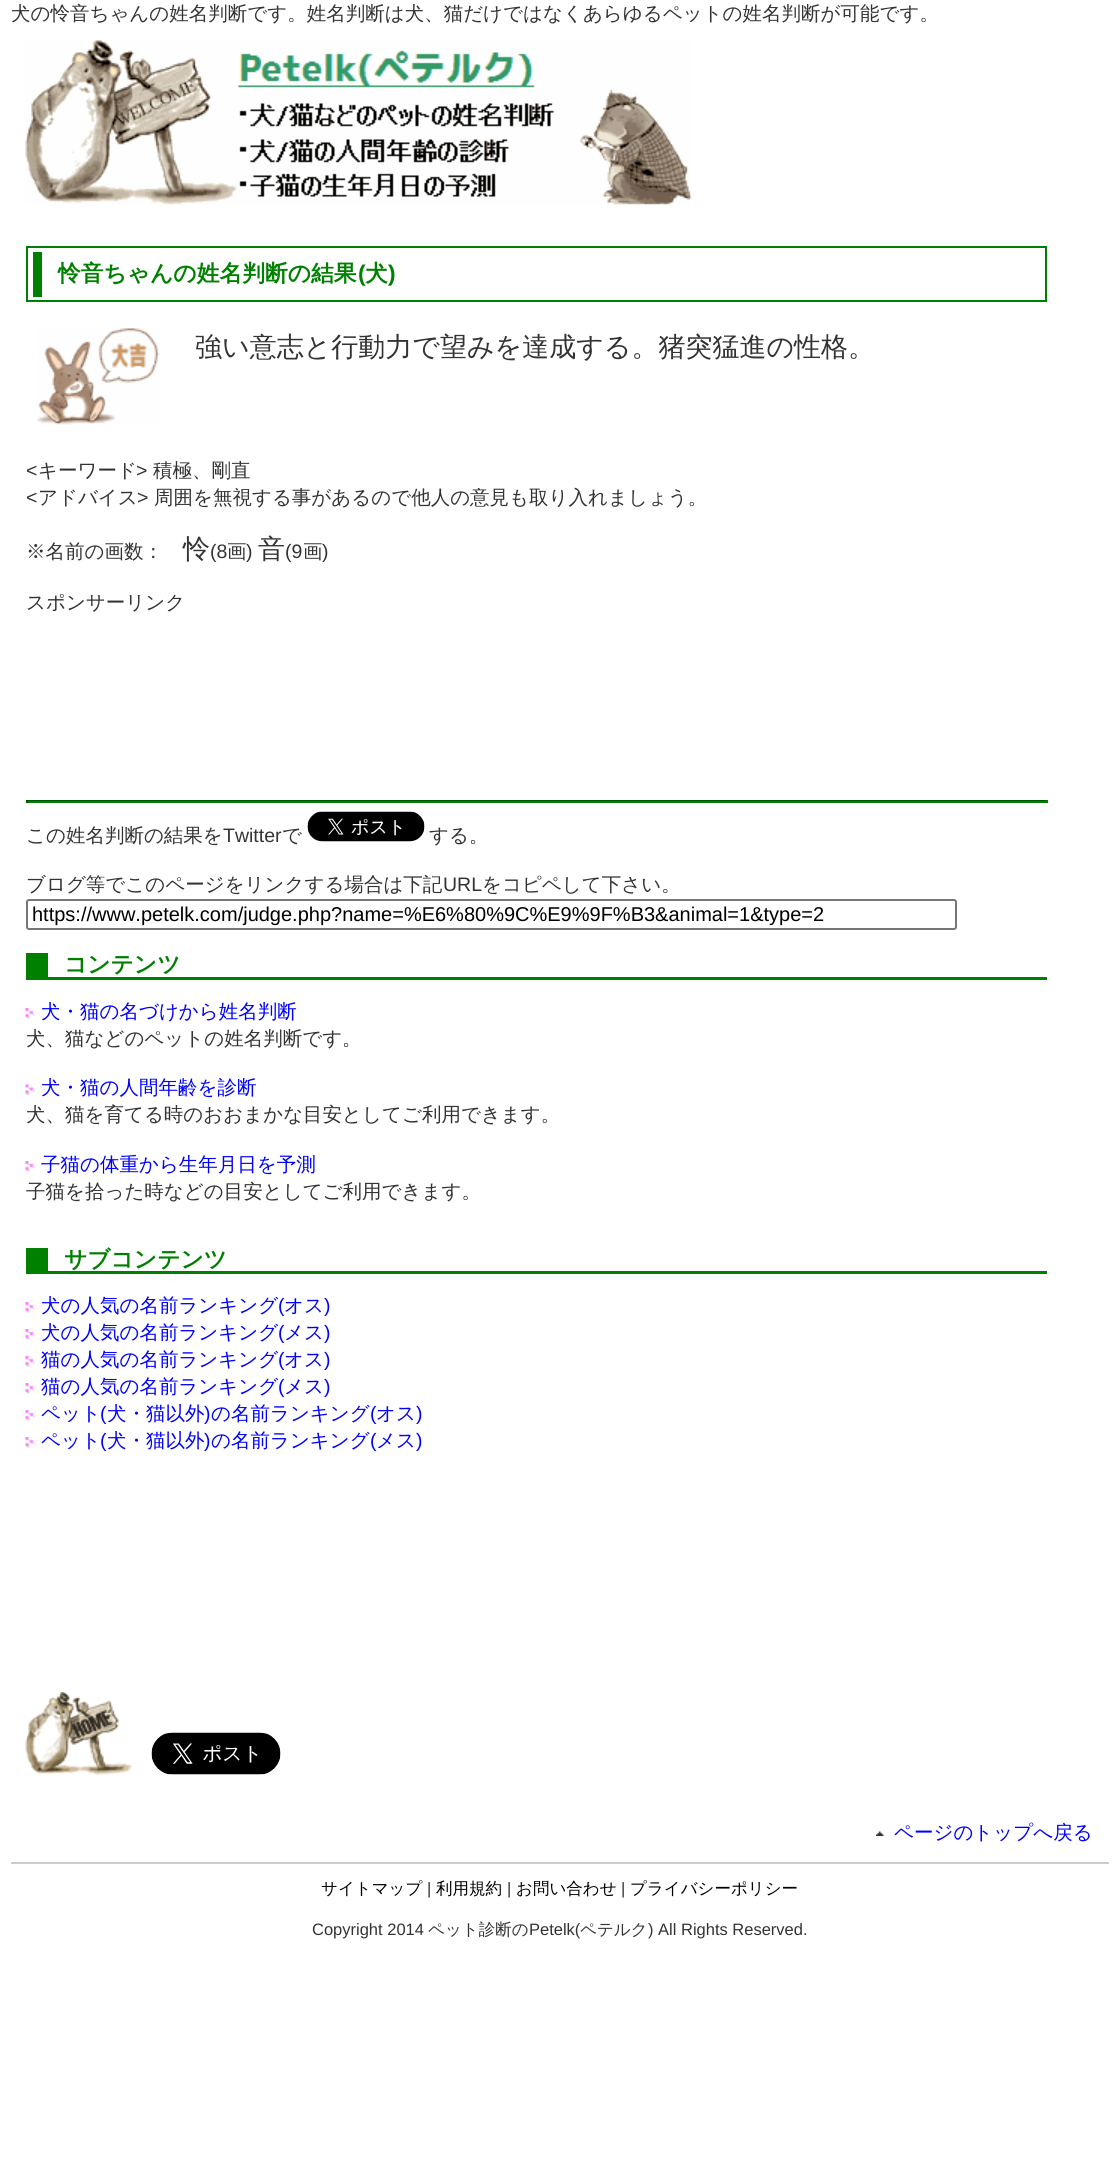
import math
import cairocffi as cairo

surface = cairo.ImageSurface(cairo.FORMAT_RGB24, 1118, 2168)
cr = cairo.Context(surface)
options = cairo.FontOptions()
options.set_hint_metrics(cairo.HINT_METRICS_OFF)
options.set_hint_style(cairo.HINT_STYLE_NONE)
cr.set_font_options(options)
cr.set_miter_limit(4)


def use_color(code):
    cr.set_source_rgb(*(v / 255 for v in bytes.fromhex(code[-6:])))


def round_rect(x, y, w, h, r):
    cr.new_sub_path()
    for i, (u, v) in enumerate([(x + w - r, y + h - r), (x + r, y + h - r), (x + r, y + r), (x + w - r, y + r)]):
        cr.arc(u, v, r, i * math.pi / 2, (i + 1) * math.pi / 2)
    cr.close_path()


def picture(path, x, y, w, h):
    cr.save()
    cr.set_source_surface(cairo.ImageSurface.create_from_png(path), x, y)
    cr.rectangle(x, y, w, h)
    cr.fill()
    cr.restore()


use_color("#ffffff")
cr.paint()
cr.select_font_face("WenQuanYi Zen Hei Medium")
cr.set_font_size(19.5)
use_color("#333333")
cr.move_to(11, 20)
cr.show_text("犬の怜音ちゃんの姓名判断です。姓名判断は犬、猫だけではなくあらゆるペットの姓名判断が可能です。")
picture("img1.png", 25, 40, 667, 165)
cr.rectangle(27, 247, 1019, 54)
use_color("#008000")
cr.stroke()
cr.rectangle(33, 252, 9, 45)
cr.fill()
cr.select_font_face("WenQuanYi Zen Hei", cairo.FONT_SLANT_NORMAL, cairo.FONT_WEIGHT_BOLD)
cr.set_font_size(22.75)
cr.move_to(58, 281)
cr.show_text("怜音ちゃんの姓名判断の結果")
cr.select_font_face("Liberation Sans", cairo.FONT_SLANT_NORMAL, cairo.FONT_WEIGHT_BOLD)
cr.move_to(358, 281)
cr.show_text("(")
cr.select_font_face("WenQuanYi Zen Hei", cairo.FONT_SLANT_NORMAL, cairo.FONT_WEIGHT_BOLD)
cr.move_to(365, 281)
cr.show_text("犬")
cr.select_font_face("Liberation Sans", cairo.FONT_SLANT_NORMAL, cairo.FONT_WEIGHT_BOLD)
cr.move_to(388, 281)
cr.show_text(")")
picture("img2.png", 37, 328, 123, 97)
cr.select_font_face("WenQuanYi Zen Hei Medium")
cr.set_font_size(27)
use_color("#333333")
cr.move_to(195, 356)
cr.show_text("強い意志と行動力で望みを達成する。猪突猛進の性格。")
cr.select_font_face("Liberation Sans")
cr.set_font_size(19.5)
cr.move_to(26, 477)
cr.show_text("<")
cr.select_font_face("WenQuanYi Zen Hei Medium")
cr.move_to(38, 477)
cr.show_text("キーワード")
cr.select_font_face("Liberation Sans")
cr.move_to(136, 477)
cr.show_text(">")
cr.select_font_face("WenQuanYi Zen Hei Medium")
cr.move_to(153, 477)
cr.show_text("積極、剛直")
cr.select_font_face("Liberation Sans")
cr.move_to(26, 504)
cr.show_text("<")
cr.select_font_face("WenQuanYi Zen Hei Medium")
cr.move_to(38, 504)
cr.show_text("アドバイス")
cr.select_font_face("Liberation Sans")
cr.move_to(137, 504)
cr.show_text(">")
cr.select_font_face("WenQuanYi Zen Hei Medium")
cr.move_to(154, 504)
cr.show_text("周囲を無視する事があるので他人の意見も取り入れましょう。")
cr.move_to(26, 558)
cr.show_text("※名前の画数：")
cr.set_font_size(27)
cr.move_to(183, 558)
cr.show_text("怜")
cr.select_font_face("Liberation Sans")
cr.set_font_size(19.5)
cr.move_to(210, 558)
cr.show_text("(8")
cr.select_font_face("WenQuanYi Zen Hei Medium")
cr.move_to(227, 558)
cr.show_text("画")
cr.select_font_face("Liberation Sans")
cr.move_to(246, 558)
cr.show_text(")")
cr.select_font_face("WenQuanYi Zen Hei Medium")
cr.set_font_size(27)
cr.move_to(258, 558)
cr.show_text("音")
cr.select_font_face("Liberation Sans")
cr.set_font_size(19.5)
cr.move_to(285, 558)
cr.show_text("(9")
cr.select_font_face("WenQuanYi Zen Hei Medium")
cr.move_to(303, 558)
cr.show_text("画")
cr.select_font_face("Liberation Sans")
cr.move_to(322, 558)
cr.show_text(")")
cr.select_font_face("WenQuanYi Zen Hei Medium")
cr.move_to(26, 609)
cr.show_text("スポンサーリンク")
use_color("#005500")
cr.rectangle(26, 800, 1021, 1)
cr.fill()
use_color("#008000")
cr.rectangle(1046, 800, 2, 3)
cr.fill()
cr.rectangle(26, 801, 1021, 2)
cr.fill()
use_color("#005500")
cr.rectangle(26, 800, 2, 3)
cr.fill()
use_color("#333333")
cr.move_to(26, 842)
cr.show_text("この姓名判断の結果を")
cr.select_font_face("Liberation Sans")
cr.move_to(223, 842)
cr.show_text("Twitter")
cr.select_font_face("WenQuanYi Zen Hei Medium")
cr.move_to(282, 842)
cr.show_text("で")
picture("img3.png", 307, 811, 118, 31)
cr.move_to(429, 842)
cr.show_text("する。")
cr.move_to(26, 891)
cr.show_text("ブログ等でこのページをリンクする場合は下記")
cr.select_font_face("Liberation Sans")
cr.move_to(443, 891)
cr.show_text("URL")
cr.select_font_face("WenQuanYi Zen Hei Medium")
cr.move_to(482, 891)
cr.show_text("をコピペして下さい。")
round_rect(27, 900, 929, 29, 2)
use_color("#767676")
cr.stroke()
cr.select_font_face("Liberation Sans")
cr.set_font_size(20)
use_color("#000000")
cr.move_to(32, 921)
cr.show_text("https://www.petelk.com/judge.php?name=%E6%80%9C%E9%9F%B3&animal=1&type=2")
use_color("#008000")
cr.rectangle(48, 977, 999, 3)
cr.fill()
cr.rectangle(26, 953, 22, 27)
cr.fill()
cr.select_font_face("WenQuanYi Zen Hei", cairo.FONT_SLANT_NORMAL, cairo.FONT_WEIGHT_BOLD)
cr.set_font_size(22.75)
cr.move_to(64, 972)
cr.show_text("コンテンツ")
picture("img4.png", 25, 1008, 10, 11)
cr.select_font_face("WenQuanYi Zen Hei Medium")
cr.set_font_size(19.5)
use_color("#0000ff")
cr.move_to(41, 1018)
cr.show_text("犬・猫の名づけから姓名判断")
use_color("#333333")
cr.move_to(26, 1045)
cr.show_text("犬、猫などのペットの姓名判断です。")
picture("img5.png", 25, 1084, 10, 11)
use_color("#0000ff")
cr.move_to(41, 1094)
cr.show_text("犬・猫の人間年齢を診断")
use_color("#333333")
cr.move_to(26, 1121)
cr.show_text("犬、猫を育てる時のおおまかな目安としてご利用できます。")
picture("img4.png", 25, 1161, 10, 11)
use_color("#0000ff")
cr.move_to(41, 1171)
cr.show_text("子猫の体重から生年月日を予測")
use_color("#333333")
cr.move_to(26, 1198)
cr.show_text("子猫を拾った時などの目安としてご利用できます。")
use_color("#008000")
cr.rectangle(48, 1271, 999, 3)
cr.fill()
cr.rectangle(26, 1248, 22, 26)
cr.fill()
cr.select_font_face("WenQuanYi Zen Hei", cairo.FONT_SLANT_NORMAL, cairo.FONT_WEIGHT_BOLD)
cr.set_font_size(22.75)
cr.move_to(64, 1267)
cr.show_text("サブコンテンツ")
picture("img4.png", 25, 1302, 10, 11)
cr.select_font_face("WenQuanYi Zen Hei Medium")
cr.set_font_size(19.5)
use_color("#0000ff")
cr.move_to(41, 1312)
cr.show_text("犬の人気の名前ランキング")
cr.select_font_face("Liberation Sans")
cr.move_to(278, 1312)
cr.show_text("(")
cr.select_font_face("WenQuanYi Zen Hei Medium")
cr.move_to(284, 1312)
cr.show_text("オス")
cr.select_font_face("Liberation Sans")
cr.move_to(324, 1312)
cr.show_text(")")
picture("img4.png", 25, 1329, 10, 11)
cr.select_font_face("WenQuanYi Zen Hei Medium")
cr.move_to(41, 1339)
cr.show_text("犬の人気の名前ランキング")
cr.select_font_face("Liberation Sans")
cr.move_to(278, 1339)
cr.show_text("(")
cr.select_font_face("WenQuanYi Zen Hei Medium")
cr.move_to(284, 1339)
cr.show_text("メス")
cr.select_font_face("Liberation Sans")
cr.move_to(324, 1339)
cr.show_text(")")
picture("img4.png", 25, 1356, 10, 11)
cr.select_font_face("WenQuanYi Zen Hei Medium")
cr.move_to(41, 1366)
cr.show_text("猫の人気の名前ランキング")
cr.select_font_face("Liberation Sans")
cr.move_to(278, 1366)
cr.show_text("(")
cr.select_font_face("WenQuanYi Zen Hei Medium")
cr.move_to(284, 1366)
cr.show_text("オス")
cr.select_font_face("Liberation Sans")
cr.move_to(324, 1366)
cr.show_text(")")
picture("img4.png", 25, 1383, 10, 11)
cr.select_font_face("WenQuanYi Zen Hei Medium")
cr.move_to(41, 1393)
cr.show_text("猫の人気の名前ランキング")
cr.select_font_face("Liberation Sans")
cr.move_to(278, 1393)
cr.show_text("(")
cr.select_font_face("WenQuanYi Zen Hei Medium")
cr.move_to(284, 1393)
cr.show_text("メス")
cr.select_font_face("Liberation Sans")
cr.move_to(324, 1393)
cr.show_text(")")
picture("img4.png", 25, 1410, 10, 11)
cr.select_font_face("WenQuanYi Zen Hei Medium")
cr.move_to(41, 1420)
cr.show_text("ペット")
cr.select_font_face("Liberation Sans")
cr.move_to(100, 1420)
cr.show_text("(")
cr.select_font_face("WenQuanYi Zen Hei Medium")
cr.move_to(107, 1420)
cr.show_text("犬・猫以外")
cr.select_font_face("Liberation Sans")
cr.move_to(204, 1420)
cr.show_text(")")
cr.select_font_face("WenQuanYi Zen Hei Medium")
cr.move_to(211, 1420)
cr.show_text("の名前ランキング")
cr.select_font_face("Liberation Sans")
cr.move_to(370, 1420)
cr.show_text("(")
cr.select_font_face("WenQuanYi Zen Hei Medium")
cr.move_to(376, 1420)
cr.show_text("オス")
cr.select_font_face("Liberation Sans")
cr.move_to(416, 1420)
cr.show_text(")")
picture("img4.png", 25, 1437, 10, 11)
cr.select_font_face("WenQuanYi Zen Hei Medium")
cr.move_to(41, 1447)
cr.show_text("ペット")
cr.select_font_face("Liberation Sans")
cr.move_to(100, 1447)
cr.show_text("(")
cr.select_font_face("WenQuanYi Zen Hei Medium")
cr.move_to(107, 1447)
cr.show_text("犬・猫以外")
cr.select_font_face("Liberation Sans")
cr.move_to(204, 1447)
cr.show_text(")")
cr.select_font_face("WenQuanYi Zen Hei Medium")
cr.move_to(211, 1447)
cr.show_text("の名前ランキング")
cr.select_font_face("Liberation Sans")
cr.move_to(370, 1447)
cr.show_text("(")
cr.select_font_face("WenQuanYi Zen Hei Medium")
cr.move_to(376, 1447)
cr.show_text("メス")
cr.select_font_face("Liberation Sans")
cr.move_to(416, 1447)
cr.show_text(")")
picture("img6.png", 25, 1692, 107, 83)
picture("img7.png", 151, 1732, 130, 43)
picture("img8.png", 876, 1831, 8, 5)
cr.select_font_face("WenQuanYi Zen Hei Medium")
cr.move_to(894, 1839)
cr.show_text("ページのトップへ戻る")
use_color("#cccccc")
cr.rectangle(11, 1862, 1098, 2)
cr.fill()
cr.set_font_size(16.5)
use_color("#000000")
cr.move_to(321, 1894)
cr.show_text("サイトマップ")
cr.select_font_face("Liberation Sans")
use_color("#333333")
cr.move_to(427, 1894)
cr.show_text("|")
cr.select_font_face("WenQuanYi Zen Hei Medium")
use_color("#000000")
cr.move_to(436, 1894)
cr.show_text("利用規約")
cr.select_font_face("Liberation Sans")
use_color("#333333")
cr.move_to(507, 1894)
cr.show_text("|")
cr.select_font_face("WenQuanYi Zen Hei Medium")
use_color("#000000")
cr.move_to(516, 1894)
cr.show_text("お問い合わせ")
cr.select_font_face("Liberation Sans")
use_color("#333333")
cr.move_to(621, 1894)
cr.show_text("|")
cr.select_font_face("WenQuanYi Zen Hei Medium")
use_color("#000000")
cr.move_to(630, 1894)
cr.show_text("プライバシーポリシー")
cr.select_font_face("Liberation Sans")
use_color("#333333")
cr.move_to(312, 1935)
cr.show_text("Copyright 2014")
cr.select_font_face("WenQuanYi Zen Hei Medium")
cr.move_to(428, 1935)
cr.show_text("ペット診断の")
cr.select_font_face("Liberation Sans")
cr.move_to(529, 1935)
cr.show_text("Petelk(")
cr.select_font_face("WenQuanYi Zen Hei Medium")
cr.move_to(580, 1935)
cr.show_text("ペテルク")
cr.select_font_face("Liberation Sans")
cr.move_to(648, 1935)
cr.show_text(") All Rights Reserved.")
surface.write_to_png("result.png")
